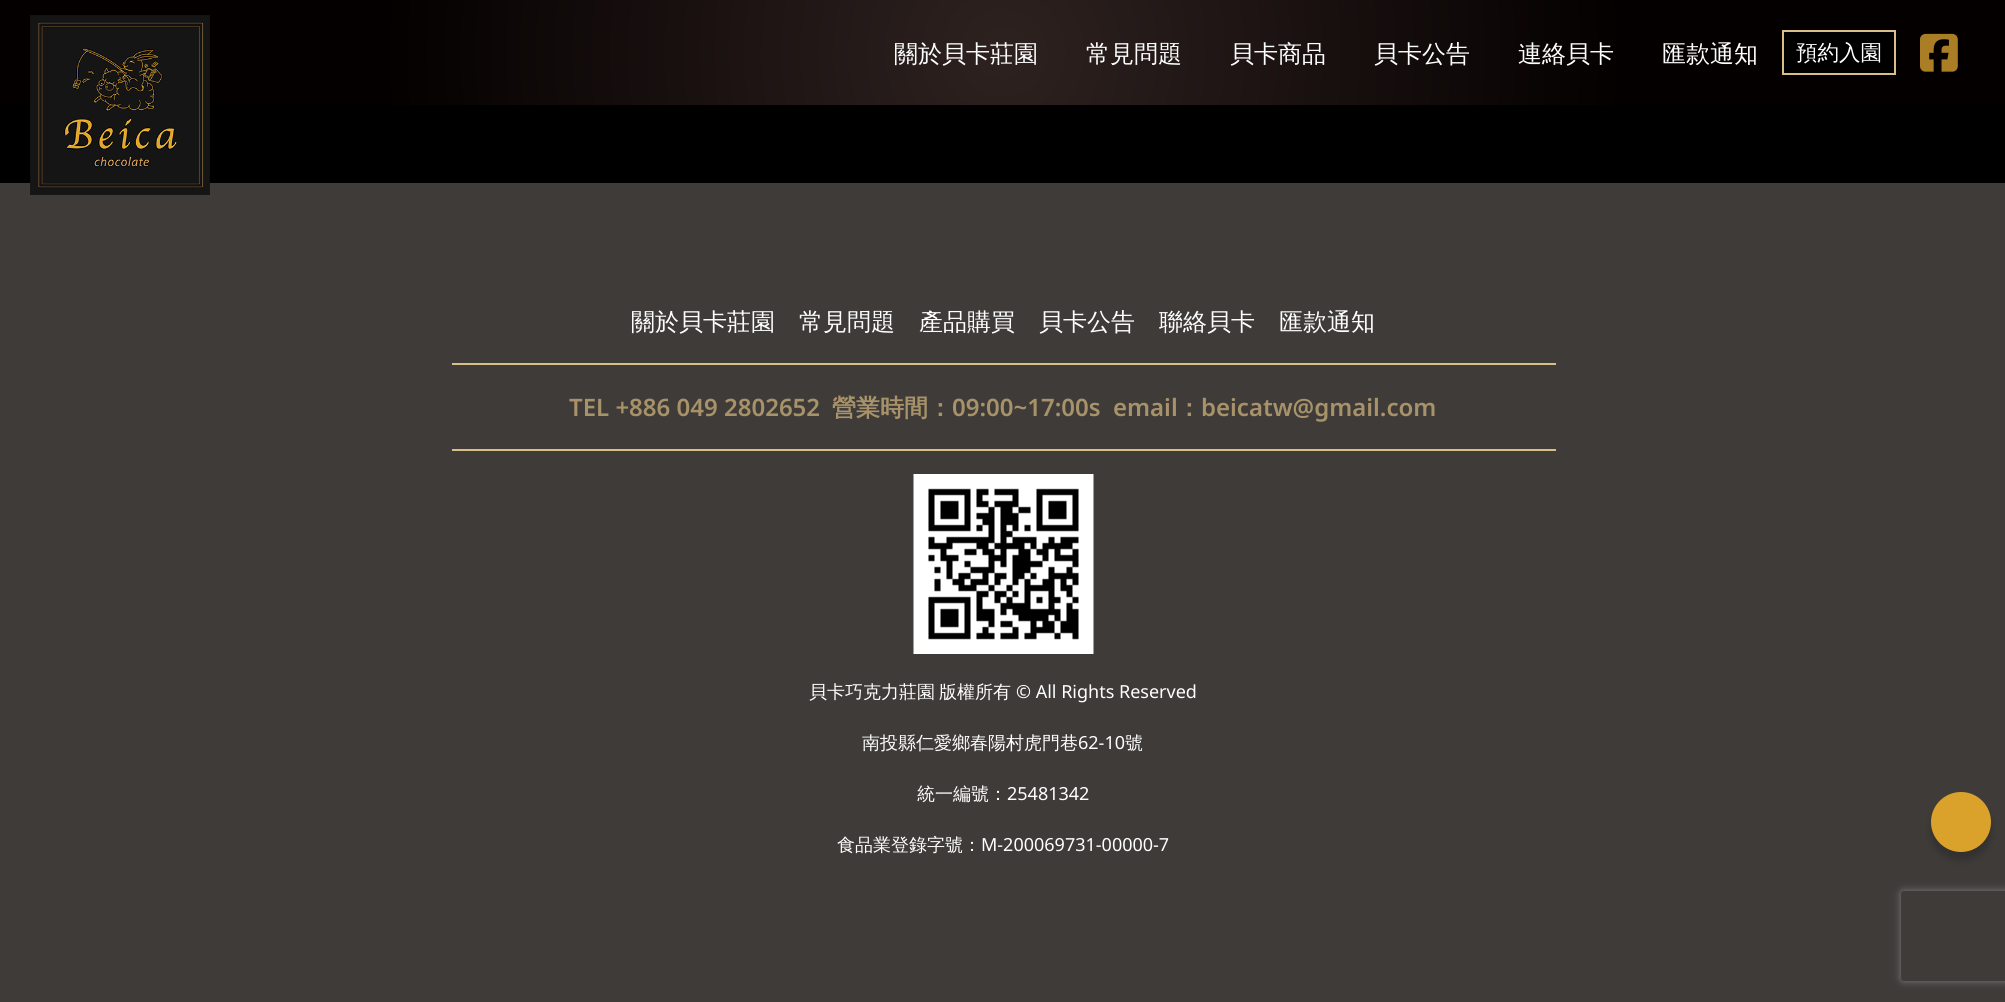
import math
import cairocffi as cairo

surface = cairo.ImageSurface(cairo.FORMAT_RGB24, 2005, 1002)
cr = cairo.Context(surface)
options = cairo.FontOptions()
options.set_hint_metrics(cairo.HINT_METRICS_OFF)
options.set_hint_style(cairo.HINT_STYLE_NONE)
cr.set_font_options(options)
cr.set_miter_limit(4)


def use_color(code):
    cr.set_source_rgb(*(v / 255 for v in bytes.fromhex(code[-6:])))


def round_rect(x, y, w, h, r):
    cr.new_sub_path()
    for i, (u, v) in enumerate([(x + w - r, y + h - r), (x + r, y + h - r), (x + r, y + r), (x + w - r, y + r)]):
        cr.arc(u, v, r, i * math.pi / 2, (i + 1) * math.pi / 2)
    cr.close_path()


def shadow(x, y, w, h, r, blur, alpha):
    cr.push_group_with_content(cairo.CONTENT_ALPHA)
    cr.set_operator(cairo.OPERATOR_SOURCE)
    for i in range(15, -16, -2):
        e = blur * i / 6
        if min(w, h) + 2 * e > 0:
            cr.set_source_rgba(0, 0, 0, alpha * math.erfc((i - 1) / 8.5) / 2)
            round_rect(x - e, y - e, w + 2 * e, h + 2 * e, max(0, min(r + e + blur * .6, min(w, h) / 2 + e)))
            cr.fill()
    cr.mask(cr.pop_group())


def picture(path, x, y, w, h):
    cr.save()
    cr.set_source_surface(cairo.ImageSurface.create_from_png(path), x, y)
    cr.rectangle(x, y, w, h)
    cr.fill()
    cr.restore()


use_color("#000000")
cr.paint()
gradient = cairo.RadialGradient(1003, 53, 0, 1003, 53, 1004)
gradient.add_color_stop_rgba(0, 0.18, 0.133, 0.125, 1)
gradient.add_color_stop_rgba(0.62, 0.016, 0, 0, 1)
cr.set_source(gradient)
cr.rectangle(0, 0, 2005, 105)
cr.fill()
use_color("#3e3b39")
cr.rectangle(0, 183, 2005, 819)
cr.fill()
picture("img1.png", 30, 15, 180, 180)
cr.select_font_face("WenQuanYi Zen Hei Medium")
cr.set_font_size(24)
use_color("#ffffff")
cr.move_to(894, 62)
cr.show_text("關於貝卡莊園")
cr.move_to(1086, 62)
cr.show_text("常見問題")
cr.move_to(1230, 62)
cr.show_text("貝卡商品")
cr.move_to(1374, 62)
cr.show_text("貝卡公告")
cr.move_to(1518, 62)
cr.show_text("連絡貝卡")
cr.move_to(1662, 62)
cr.show_text("匯款通知")
use_color("#010000")
cr.rectangle(1783, 31, 112, 43)
cr.fill_preserve()
use_color("#d9be8a")
cr.stroke()
cr.set_font_size(21.5)
use_color("#ffffff")
cr.move_to(1796, 60)
cr.show_text("預約入園")
picture("img2.png", 1920, 33, 38, 39)
cr.set_font_size(24)
cr.move_to(631, 330)
cr.show_text("關於貝卡莊園")
cr.move_to(799, 330)
cr.show_text("常見問題")
cr.move_to(919, 330)
cr.show_text("產品購買")
cr.move_to(1039, 330)
cr.show_text("貝卡公告")
cr.move_to(1159, 330)
cr.show_text("聯絡貝卡")
cr.move_to(1279, 330)
cr.show_text("匯款通知")
use_color("#d9be8a")
cr.rectangle(452, 363, 1104, 2)
cr.fill()
cr.rectangle(452, 449, 1104, 2)
cr.fill()
cr.select_font_face("Noto Sans SemiBold")
use_color("#a79269")
cr.move_to(569, 416)
cr.show_text("TEL +886 049 2802652")
cr.select_font_face("WenQuanYi Zen Hei", cairo.FONT_SLANT_NORMAL, cairo.FONT_WEIGHT_BOLD)
cr.move_to(832, 416)
cr.show_text("營業時間：")
cr.select_font_face("Noto Sans SemiBold")
cr.move_to(952, 416)
cr.show_text("09:00~17:00s")
cr.move_to(1113, 416)
cr.show_text("email")
cr.select_font_face("WenQuanYi Zen Hei", cairo.FONT_SLANT_NORMAL, cairo.FONT_WEIGHT_BOLD)
cr.move_to(1177, 416)
cr.show_text("：")
cr.select_font_face("Noto Sans SemiBold")
cr.move_to(1201, 416)
cr.show_text("beicatw@gmail.com")
picture("img3.png", 913, 474, 181, 180)
cr.select_font_face("WenQuanYi Zen Hei Medium")
cr.set_font_size(18)
use_color("#ffffff")
cr.move_to(809, 698)
cr.show_text("貝卡巧克力莊園")
cr.move_to(939, 698)
cr.show_text("版權所有")
cr.select_font_face("Noto Sans")
cr.move_to(1016, 698)
cr.show_text("© All Rights Reserved")
cr.select_font_face("WenQuanYi Zen Hei Medium")
cr.move_to(862, 749)
cr.show_text("南投縣仁愛鄉春陽村虎門巷")
cr.select_font_face("Noto Sans")
cr.move_to(1078, 749)
cr.show_text("62-10")
cr.select_font_face("WenQuanYi Zen Hei Medium")
cr.move_to(1125, 749)
cr.show_text("號")
cr.move_to(917, 800)
cr.show_text("統一編號：")
cr.select_font_face("Noto Sans")
cr.move_to(1007, 800)
cr.show_text("25481342")
cr.select_font_face("WenQuanYi Zen Hei Medium")
cr.move_to(837, 851)
cr.show_text("食品業登錄字號：")
cr.select_font_face("Noto Sans")
cr.move_to(981, 851)
cr.show_text("M-200069731-00000-7")
use_color("#020202")
shadow(1931, 800, 60, 60, 30, 4, 0.2)
use_color("#dba22b")
cr.arc(1961, 822, 30, 0, 2 * math.pi)
cr.fill()
cr.save()
cr.set_fill_rule(cairo.FILL_RULE_EVEN_ODD)
cr.new_path()
cr.move_to(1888, 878)
cr.line_to(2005, 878)
cr.line_to(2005, 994)
cr.line_to(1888, 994)
cr.close_path()
cr.move_to(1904, 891)
cr.line_to(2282, 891)
cr.curve_to(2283.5, 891, 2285, 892.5, 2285, 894)
cr.line_to(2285, 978)
cr.curve_to(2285, 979.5, 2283.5, 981, 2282, 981)
cr.line_to(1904, 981)
cr.curve_to(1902.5, 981, 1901, 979.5, 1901, 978)
cr.line_to(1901, 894)
cr.curve_to(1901, 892.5, 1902.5, 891, 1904, 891)
cr.close_path()
cr.clip()
use_color("#808080")
shadow(1901, 891, 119, 90, 3, 4, 1)
cr.restore()
surface.write_to_png("result.png")
